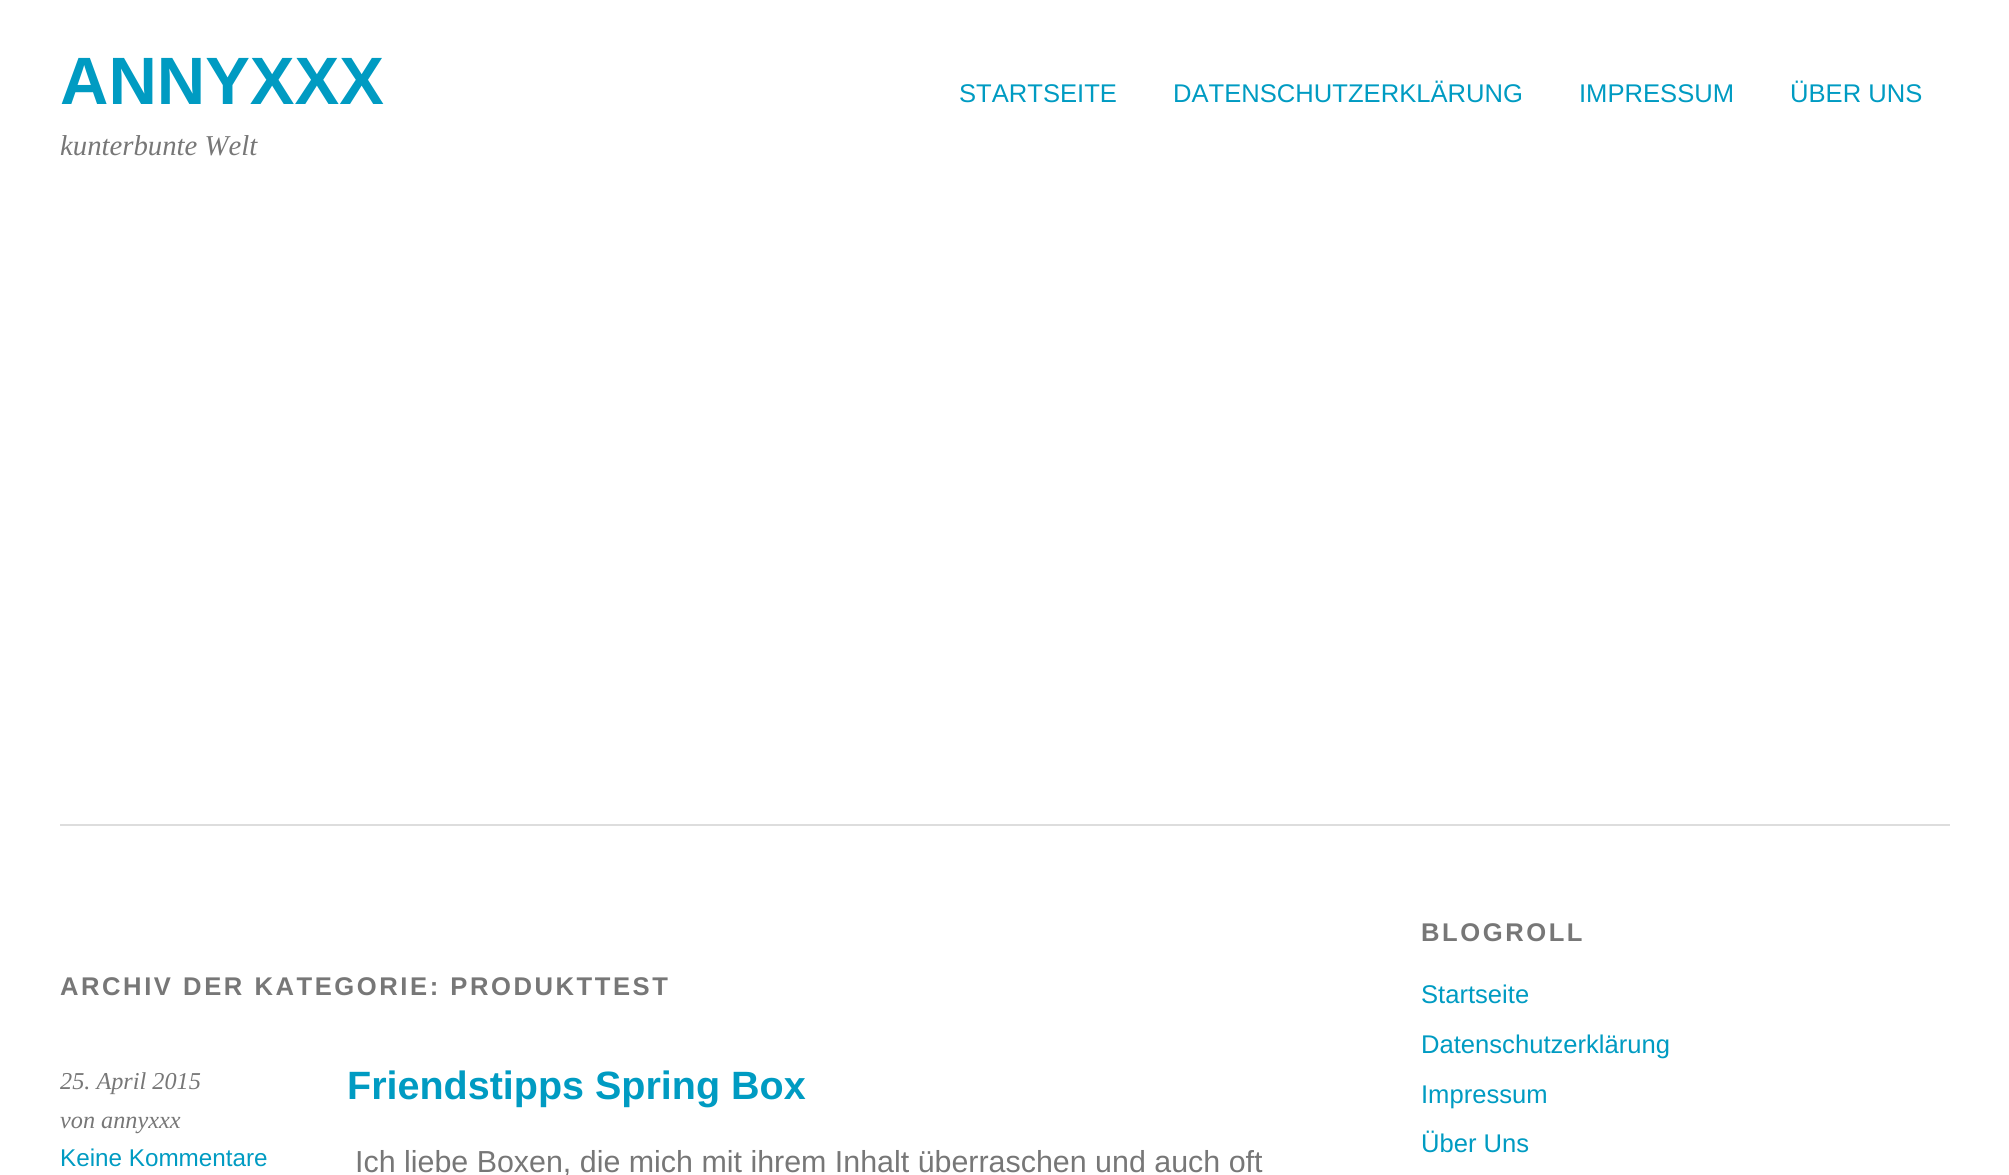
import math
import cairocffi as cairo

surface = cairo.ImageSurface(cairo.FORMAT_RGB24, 2009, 1175)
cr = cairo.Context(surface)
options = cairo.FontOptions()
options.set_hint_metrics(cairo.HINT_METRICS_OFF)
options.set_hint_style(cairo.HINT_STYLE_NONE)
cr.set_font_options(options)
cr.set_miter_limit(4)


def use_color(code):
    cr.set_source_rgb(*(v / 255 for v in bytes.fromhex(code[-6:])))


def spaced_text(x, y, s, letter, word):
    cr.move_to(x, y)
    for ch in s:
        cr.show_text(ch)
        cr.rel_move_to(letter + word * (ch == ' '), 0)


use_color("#ffffff")
cr.paint()
cr.select_font_face("Liberation Sans", cairo.FONT_SLANT_NORMAL, cairo.FONT_WEIGHT_BOLD)
cr.set_font_size(67)
use_color("#009bc2")
cr.move_to(60, 104)
cr.show_text("ANNYXXX")
cr.select_font_face("Liberation Serif", cairo.FONT_SLANT_ITALIC)
cr.set_font_size(28.75)
use_color("#777777")
cr.move_to(60, 155)
cr.show_text("kunterbunte Welt")
cr.select_font_face("Liberation Sans")
cr.set_font_size(25.6)
use_color("#009bc2")
cr.move_to(959, 102)
cr.show_text("STARTSEITE")
cr.move_to(1173, 102)
cr.show_text("DATENSCHUTZERKLÄRUNG")
cr.move_to(1579, 102)
cr.show_text("IMPRESSUM")
cr.move_to(1790, 102)
cr.show_text("ÜBER UNS")
use_color("#dddddd")
cr.rectangle(60, 824, 1890, 2)
cr.fill()
cr.select_font_face("Liberation Sans", cairo.FONT_SLANT_NORMAL, cairo.FONT_WEIGHT_BOLD)
use_color("#777777")
spaced_text(60, 995, "ARCHIV DER KATEGORIE: PRODUKTTEST", 2.55, 0)
cr.select_font_face("Liberation Serif", cairo.FONT_SLANT_ITALIC)
cr.set_font_size(24.25)
cr.move_to(60, 1089)
cr.show_text("25. April 2015")
cr.move_to(60, 1128)
cr.show_text("von annyxxx")
cr.select_font_face("Liberation Sans")
use_color("#009bc2")
cr.move_to(60, 1166)
cr.show_text("Keine Kommentare")
cr.select_font_face("Liberation Sans", cairo.FONT_SLANT_NORMAL, cairo.FONT_WEIGHT_BOLD)
cr.set_font_size(39.5)
cr.move_to(347, 1099)
cr.show_text("Friendstipps Spring Box")
cr.select_font_face("Liberation Sans")
cr.set_font_size(30.4)
use_color("#777777")
cr.move_to(355, 1172)
cr.show_text("Ich liebe Boxen, die mich mit ihrem Inhalt überraschen und auch oft")
cr.select_font_face("Liberation Sans", cairo.FONT_SLANT_NORMAL, cairo.FONT_WEIGHT_BOLD)
cr.set_font_size(25.6)
spaced_text(1421, 941, "BLOGROLL", 2.55, 0)
cr.select_font_face("Liberation Sans")
use_color("#009bc2")
cr.move_to(1421, 1003)
cr.show_text("Startseite")
cr.move_to(1421, 1053)
cr.show_text("Datenschutzerklärung")
cr.move_to(1421, 1103)
cr.show_text("Impressum")
cr.move_to(1421, 1152)
cr.show_text("Über Uns")
surface.write_to_png("result.png")
